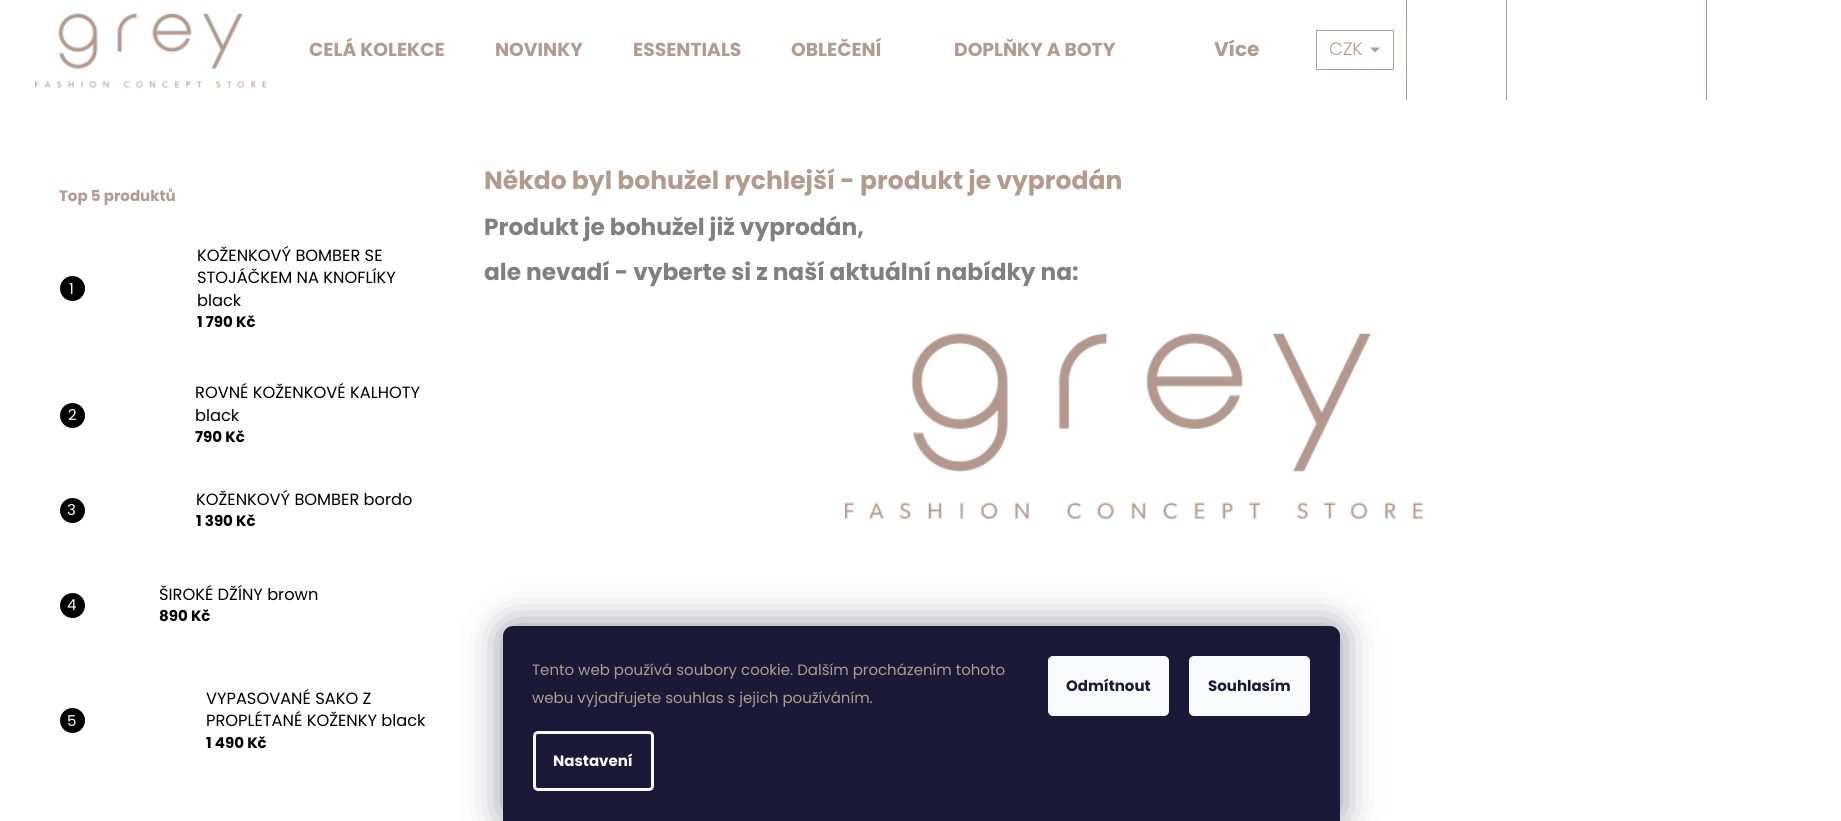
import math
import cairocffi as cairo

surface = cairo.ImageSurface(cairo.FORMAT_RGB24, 1841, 821)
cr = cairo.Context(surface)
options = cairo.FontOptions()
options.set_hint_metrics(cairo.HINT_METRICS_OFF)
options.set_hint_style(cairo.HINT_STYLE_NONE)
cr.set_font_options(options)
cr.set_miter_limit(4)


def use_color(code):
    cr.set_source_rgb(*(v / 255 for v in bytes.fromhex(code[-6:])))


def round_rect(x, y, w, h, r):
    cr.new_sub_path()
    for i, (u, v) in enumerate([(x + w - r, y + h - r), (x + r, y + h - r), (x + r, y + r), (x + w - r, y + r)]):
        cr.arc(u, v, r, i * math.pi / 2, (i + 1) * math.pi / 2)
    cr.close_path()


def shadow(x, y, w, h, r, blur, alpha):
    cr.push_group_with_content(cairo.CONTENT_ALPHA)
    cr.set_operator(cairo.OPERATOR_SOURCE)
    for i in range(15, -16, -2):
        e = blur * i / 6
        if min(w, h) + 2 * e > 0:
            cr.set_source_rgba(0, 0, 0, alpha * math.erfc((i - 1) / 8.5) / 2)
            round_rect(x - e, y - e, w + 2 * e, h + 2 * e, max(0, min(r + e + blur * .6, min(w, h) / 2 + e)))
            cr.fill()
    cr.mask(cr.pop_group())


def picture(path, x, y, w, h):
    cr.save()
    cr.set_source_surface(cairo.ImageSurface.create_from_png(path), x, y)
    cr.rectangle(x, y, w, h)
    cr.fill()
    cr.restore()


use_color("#ffffff")
cr.paint()
picture("img1.png", 35, 13, 232, 75)
cr.select_font_face("Poppins", cairo.FONT_SLANT_NORMAL, cairo.FONT_WEIGHT_BOLD)
cr.set_font_size(18.75)
use_color("#b39a8d")
cr.move_to(309, 56)
cr.show_text("CELÁ KOLEKCE")
cr.move_to(495, 56)
cr.show_text("NOVINKY")
cr.move_to(633, 56)
cr.show_text("ESSENTIALS")
cr.move_to(791, 56)
cr.show_text("OBLEČENÍ")
cr.move_to(954, 56)
cr.show_text("DOPLŇKY A BOTY")
cr.set_font_size(20)
cr.move_to(1214, 56)
cr.show_text("Více")
cr.rectangle(1316.5, 30.5, 77, 39)
cr.set_line_width(1)
cr.stroke()
cr.select_font_face("Poppins Light")
cr.set_font_size(18)
cr.move_to(1329, 55)
cr.show_text("CZK")
cr.new_path()
cr.move_to(1370, 47.5)
cr.line_to(1380, 47.5)
cr.line_to(1375, 52.5)
cr.close_path()
cr.fill()
cr.rectangle(1406, 0, 1, 100)
cr.fill()
cr.rectangle(1506, 0, 1, 100)
cr.fill()
cr.rectangle(1706, 0, 1, 100)
cr.fill()
cr.select_font_face("Poppins", cairo.FONT_SLANT_NORMAL, cairo.FONT_WEIGHT_BOLD)
cr.set_font_size(15)
cr.move_to(59, 201)
cr.show_text("Top 5 produktů")
use_color("#000000")
cr.new_path()
cr.arc(72.5, 288.5, 12.5, 0, 2 * math.pi)
cr.fill()
cr.select_font_face("Poppins")
use_color("#ffffff")
cr.move_to(69, 294)
cr.show_text("1")
cr.set_font_size(16.25)
use_color("#000000")
cr.move_to(197, 261)
cr.show_text("KOŽENKOVÝ BOMBER SE")
cr.move_to(197, 283)
cr.show_text("STOJÁČKEM NA KNOFLÍKY")
cr.move_to(197, 306)
cr.show_text("black")
cr.select_font_face("Poppins", cairo.FONT_SLANT_NORMAL, cairo.FONT_WEIGHT_BOLD)
cr.set_font_size(15)
cr.move_to(197, 327)
cr.show_text("1 790 Kč")
cr.new_path()
cr.arc(72.5, 415.5, 12.5, 0, 2 * math.pi)
cr.fill()
cr.select_font_face("Poppins")
use_color("#ffffff")
cr.move_to(68, 420)
cr.show_text("2")
cr.set_font_size(16.25)
use_color("#000000")
cr.move_to(195, 398)
cr.show_text("ROVNÉ KOŽENKOVÉ KALHOTY")
cr.move_to(195, 421)
cr.show_text("black")
cr.select_font_face("Poppins", cairo.FONT_SLANT_NORMAL, cairo.FONT_WEIGHT_BOLD)
cr.set_font_size(15)
cr.move_to(195, 442)
cr.show_text("790 Kč")
cr.new_path()
cr.arc(72.5, 510.5, 12.5, 0, 2 * math.pi)
cr.fill()
cr.select_font_face("Poppins")
use_color("#ffffff")
cr.move_to(67, 515)
cr.show_text("3")
cr.set_font_size(16.25)
use_color("#000000")
cr.move_to(196, 505)
cr.show_text("KOŽENKOVÝ BOMBER bordo")
cr.select_font_face("Poppins", cairo.FONT_SLANT_NORMAL, cairo.FONT_WEIGHT_BOLD)
cr.set_font_size(15)
cr.move_to(196, 526)
cr.show_text("1 390 Kč")
cr.new_path()
cr.arc(72.5, 605.5, 12.5, 0, 2 * math.pi)
cr.fill()
cr.select_font_face("Poppins")
use_color("#ffffff")
cr.move_to(67, 610)
cr.show_text("4")
cr.set_font_size(16.25)
use_color("#000000")
cr.move_to(159, 600)
cr.show_text("ŠIROKÉ DŽÍNY brown")
cr.select_font_face("Poppins", cairo.FONT_SLANT_NORMAL, cairo.FONT_WEIGHT_BOLD)
cr.set_font_size(15)
cr.move_to(159, 621)
cr.show_text("890 Kč")
cr.new_path()
cr.arc(72.5, 720.5, 12.5, 0, 2 * math.pi)
cr.fill()
cr.select_font_face("Poppins")
use_color("#ffffff")
cr.move_to(67, 726)
cr.show_text("5")
cr.set_font_size(16.25)
use_color("#000000")
cr.move_to(206, 704)
cr.show_text("VYPASOVANÉ SAKO Z")
cr.move_to(206, 726)
cr.show_text("PROPLÉTANÉ KOŽENKY black")
cr.select_font_face("Poppins", cairo.FONT_SLANT_NORMAL, cairo.FONT_WEIGHT_BOLD)
cr.set_font_size(15)
cr.move_to(206, 748)
cr.show_text("1 490 Kč")
cr.set_font_size(25)
use_color("#b39a8d")
cr.move_to(484, 189)
cr.show_text("Někdo byl bohužel rychlejší - produkt je vyprodán")
cr.set_font_size(23.3)
use_color("#808080")
cr.move_to(484, 235)
cr.show_text("Produkt je bohužel již vyprodán,")
cr.move_to(484, 280)
cr.show_text("ale nevadí - vyberte si z naší aktuální nabídky na:")
picture("img2.png", 845, 333, 578, 186)
use_color("#1b1939")
shadow(503, 626, 837, 195, 10, 19, 0.5)
use_color("#1a1937")
cr.new_path()
cr.move_to(513, 626)
cr.line_to(1330, 626)
cr.curve_to(1335.5, 626, 1340, 630.5, 1340, 636)
cr.line_to(1340, 821)
cr.line_to(503, 821)
cr.line_to(503, 636)
cr.curve_to(503, 630.5, 507.5, 626, 513, 626)
cr.close_path()
cr.fill()
cr.select_font_face("Poppins")
cr.set_font_size(15)
use_color("#b39a8d")
cr.move_to(532, 675)
cr.show_text("Tento web používá soubory cookie. Dalším procházením tohoto")
cr.move_to(532, 703)
cr.show_text("webu vyjadřujete souhlas s jejich používáním.")
round_rect(534.5, 732.5, 118, 57, 3.5)
use_color("#f8fafb")
cr.set_line_width(3)
cr.stroke()
cr.select_font_face("Poppins", cairo.FONT_SLANT_NORMAL, cairo.FONT_WEIGHT_BOLD)
cr.move_to(553, 766)
cr.show_text("Nastavení")
round_rect(1048, 656, 121, 60, 5)
cr.fill()
use_color("#1a1937")
cr.move_to(1066, 691)
cr.show_text("Odmítnout")
use_color("#f8fafb")
round_rect(1189, 656, 121, 60, 5)
cr.fill()
use_color("#1a1937")
cr.move_to(1208, 691)
cr.show_text("Souhlasím")
surface.write_to_png("result.png")
